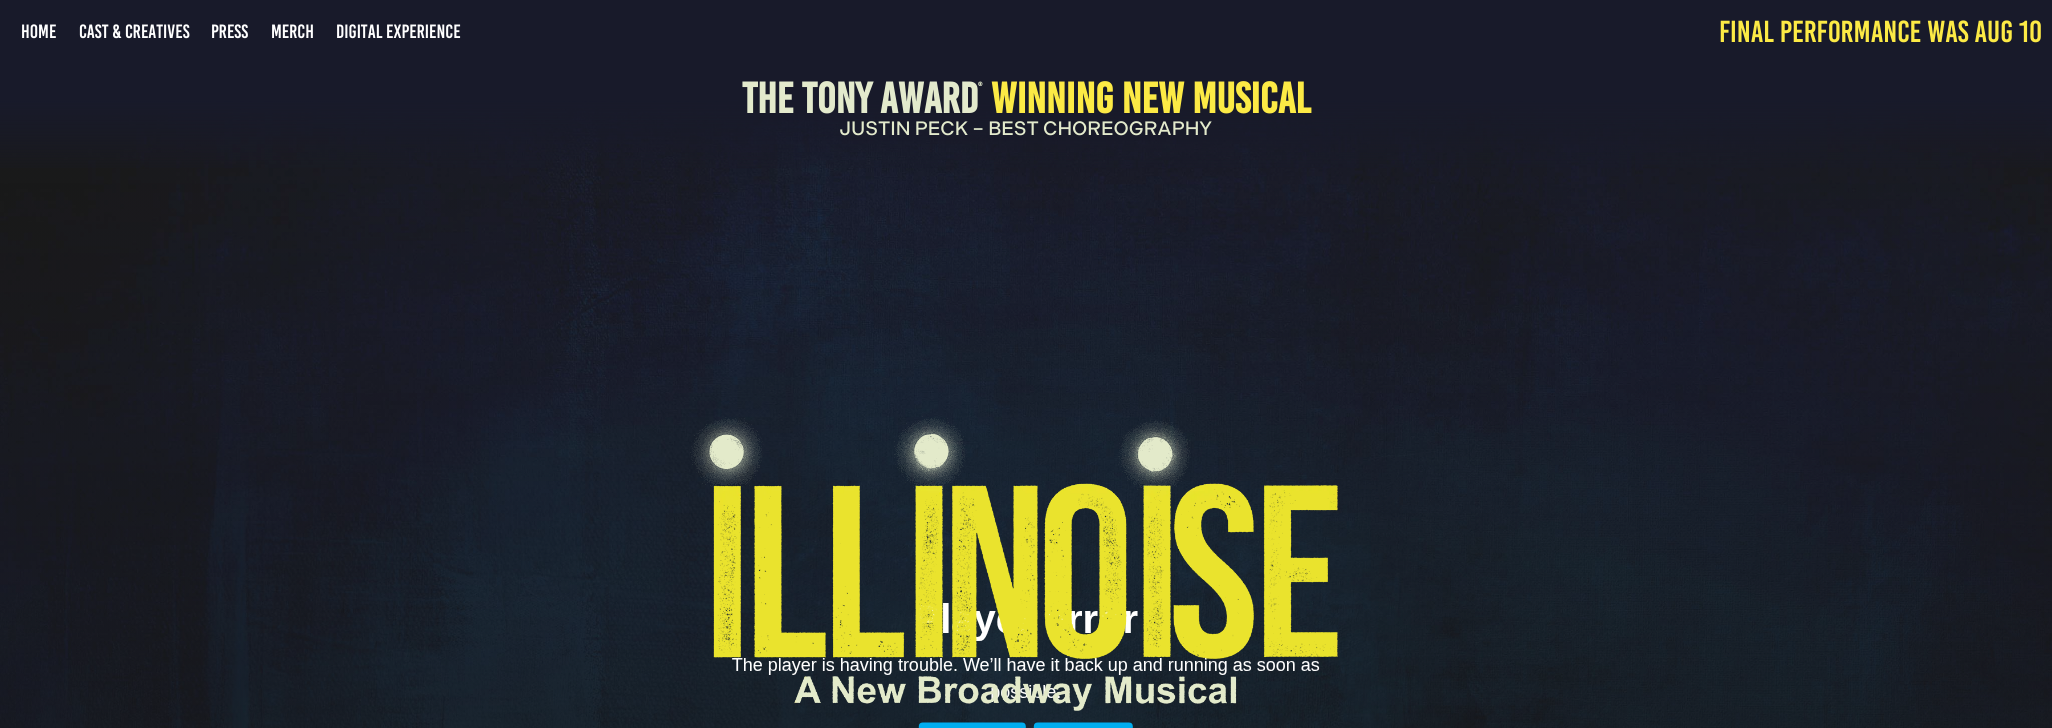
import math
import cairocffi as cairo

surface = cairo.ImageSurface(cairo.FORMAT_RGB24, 2052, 728)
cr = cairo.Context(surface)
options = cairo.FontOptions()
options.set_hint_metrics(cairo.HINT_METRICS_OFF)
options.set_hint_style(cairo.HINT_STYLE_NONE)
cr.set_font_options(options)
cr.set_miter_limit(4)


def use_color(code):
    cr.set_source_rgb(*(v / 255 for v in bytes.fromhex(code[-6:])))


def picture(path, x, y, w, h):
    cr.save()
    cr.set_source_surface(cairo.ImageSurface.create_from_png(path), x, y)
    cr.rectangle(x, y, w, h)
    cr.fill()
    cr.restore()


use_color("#ffffff")
cr.paint()
use_color("#181a2a")
cr.rectangle(0, 0, 2052, 65)
cr.fill()
cr.select_font_face("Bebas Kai")
cr.set_font_size(19.25)
use_color("#ffffff")
cr.move_to(21, 38)
cr.show_text("HOME")
cr.move_to(79, 38)
cr.show_text("CAST & CREATIVES")
cr.move_to(211, 38)
cr.show_text("PRESS")
cr.move_to(271, 38)
cr.show_text("MERCH")
cr.move_to(336, 38)
cr.show_text("DIGITAL EXPERIENCE")
cr.set_font_size(30.4)
use_color("#fcea45")
cr.move_to(1719, 42)
cr.show_text("FINAL PERFORMANCE WAS AUG 10")
picture("img3.png", 0, 100, 2052, 628)
picture("img1.png", 0, 100, 2052, 628)
gradient = cairo.LinearGradient(1026, 180, 1026, 65)
gradient.add_color_stop_rgba(0, 0.094, 0.102, 0.165, 0)
gradient.add_color_stop_rgba(0.13, 0.094, 0.102, 0.165, 0.2)
gradient.add_color_stop_rgba(0.4, 0.094, 0.102, 0.165, 0.65)
gradient.add_color_stop_rgba(0.7, 0.094, 0.102, 0.165, 1)
cr.set_source(gradient)
cr.rectangle(0, 65, 2052, 103)
cr.fill()
cr.select_font_face("Bebas Kai", cairo.FONT_SLANT_NORMAL, cairo.FONT_WEIGHT_BOLD)
cr.set_font_size(43.25)
use_color("#e3eacc")
cr.move_to(742, 113)
cr.show_text("THE TONY AWARD")
cr.set_font_size(6)
cr.move_to(978, 86)
cr.show_text("®")
cr.set_font_size(43.25)
use_color("#fcea45")
cr.move_to(991, 113)
cr.show_text("WINNING NEW MUSICAL")
cr.select_font_face("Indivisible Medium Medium")
cr.set_font_size(19.4)
use_color("#e3eacc")
cr.move_to(839, 135)
cr.show_text("JUSTIN PECK – BEST CHOREOGRAPHY")
picture("img2.png", 690, 416, 648, 295)
surface.write_to_png("result.png")
